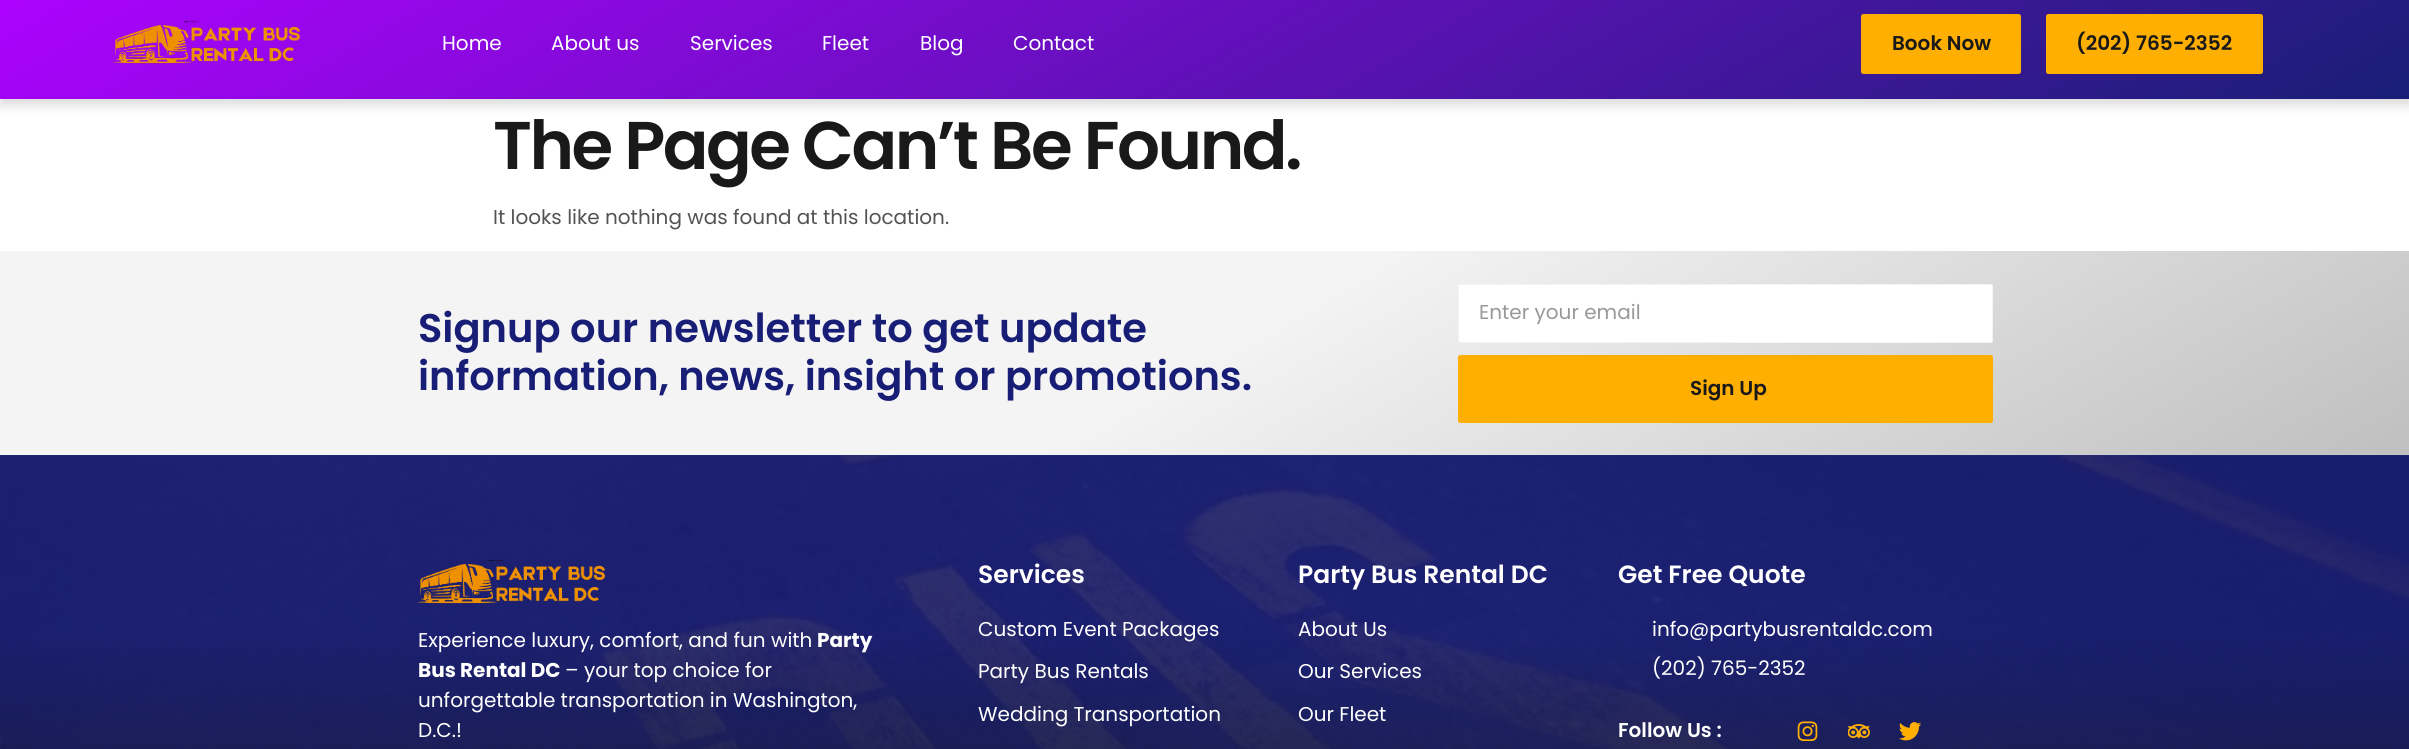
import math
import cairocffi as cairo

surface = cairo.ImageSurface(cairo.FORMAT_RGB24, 2409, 749)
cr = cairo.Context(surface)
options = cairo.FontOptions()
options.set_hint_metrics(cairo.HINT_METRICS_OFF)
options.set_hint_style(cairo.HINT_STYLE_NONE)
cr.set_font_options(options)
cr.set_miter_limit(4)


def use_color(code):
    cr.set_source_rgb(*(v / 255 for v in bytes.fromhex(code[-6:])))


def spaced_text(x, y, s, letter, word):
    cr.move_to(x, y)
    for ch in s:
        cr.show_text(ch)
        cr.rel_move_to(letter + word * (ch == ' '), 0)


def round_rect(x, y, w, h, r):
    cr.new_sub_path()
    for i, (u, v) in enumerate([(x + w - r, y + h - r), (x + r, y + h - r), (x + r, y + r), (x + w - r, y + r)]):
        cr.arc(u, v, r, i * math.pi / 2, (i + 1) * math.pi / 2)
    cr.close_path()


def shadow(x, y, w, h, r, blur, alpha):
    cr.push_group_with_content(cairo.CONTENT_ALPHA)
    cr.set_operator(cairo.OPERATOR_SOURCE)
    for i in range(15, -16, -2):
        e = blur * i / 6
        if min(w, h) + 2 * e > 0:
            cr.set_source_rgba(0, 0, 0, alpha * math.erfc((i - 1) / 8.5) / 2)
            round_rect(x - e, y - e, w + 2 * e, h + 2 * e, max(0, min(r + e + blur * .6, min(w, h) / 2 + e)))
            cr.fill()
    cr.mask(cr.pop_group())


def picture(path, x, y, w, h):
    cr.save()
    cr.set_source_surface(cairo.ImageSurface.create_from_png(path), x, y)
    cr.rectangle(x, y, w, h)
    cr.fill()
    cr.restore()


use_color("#ffffff")
cr.paint()
use_color("#000000")
shadow(0, -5, 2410, 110, 0, 6, 0.15)
gradient = cairo.LinearGradient(880, -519, 1530, 607)
gradient.add_color_stop_rgba(0, 0.682, 0.008, 1, 1)
gradient.add_color_stop_rgba(1, 0.094, 0.118, 0.463, 1)
cr.set_source(gradient)
cr.rectangle(0, 0, 2409, 99)
cr.fill()
picture("img1.png", 112, 21, 189, 43)
cr.select_font_face("Poppins")
cr.set_font_size(20)
use_color("#ffffff")
cr.move_to(442, 50)
cr.show_text("Home")
cr.move_to(551, 50)
cr.show_text("About us")
cr.move_to(690, 50)
cr.show_text("Services")
cr.move_to(822, 50)
cr.show_text("Fleet")
cr.move_to(920, 50)
cr.show_text("Blog")
cr.move_to(1013, 50)
cr.show_text("Contact")
use_color("#ffae02")
round_rect(1861, 14, 160, 60, 2.5)
cr.fill()
cr.select_font_face("Poppins SemiBold")
use_color("#191919")
cr.move_to(1892, 50)
cr.show_text("Book Now")
use_color("#ffae02")
round_rect(2046, 14, 217, 60, 2.5)
cr.fill()
use_color("#191919")
cr.move_to(2076, 50)
cr.show_text("(202) 765-2352")
cr.set_font_size(67.5)
spaced_text(493, 169, "The Page Can’t Be Found.", -2.5, 0)
cr.select_font_face("Poppins")
cr.set_font_size(20)
use_color("#535353")
cr.move_to(493, 224)
cr.show_text("It looks like nothing was found at this location.")
gradient = cairo.LinearGradient(860, -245, 1550, 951)
gradient.add_color_stop_rgba(0.5, 0.957, 0.957, 0.957, 1)
gradient.add_color_stop_rgba(1, 0.749, 0.749, 0.749, 1)
cr.set_source(gradient)
cr.rectangle(0, 251, 2409, 204)
cr.fill()
cr.select_font_face("Poppins SemiBold")
cr.set_font_size(40)
use_color("#181e76")
cr.move_to(418, 342)
cr.show_text("Signup our newsletter to get update")
cr.move_to(418, 390)
cr.show_text("information, news, insight or promotions.")
use_color("#ffffff")
round_rect(1458.5, 284.5, 534, 58, 2)
cr.fill_preserve()
use_color("#f4f4f4")
cr.set_line_width(1)
cr.stroke()
cr.select_font_face("Poppins")
cr.set_font_size(20)
use_color("#989898")
cr.move_to(1479, 319)
cr.show_text("Enter your email")
use_color("#ffae02")
round_rect(1458, 355, 535, 68, 2.5)
cr.fill()
cr.select_font_face("Poppins SemiBold")
use_color("#191919")
cr.move_to(1690, 395)
cr.show_text("Sign Up")
picture("img2.png", 0, 455, 2409, 294)
gradient = cairo.LinearGradient(1205, 455, 1205, 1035)
gradient.add_color_stop_rgba(0.3, 0.094, 0.118, 0.463, 0.91)
gradient.add_color_stop_rgba(1, 0.098, 0.098, 0.098, 1)
cr.set_source(gradient)
cr.rectangle(0, 455, 2409, 294)
cr.fill()
picture("img3.png", 417, 560, 189, 44)
cr.select_font_face("Poppins")
use_color("#ffffff")
cr.move_to(418, 647)
cr.show_text("Experience luxury, comfort, and fun with")
cr.select_font_face("Poppins", cairo.FONT_SLANT_NORMAL, cairo.FONT_WEIGHT_BOLD)
cr.move_to(817, 647)
cr.show_text("Party")
cr.move_to(418, 677)
cr.show_text("Bus Rental DC")
cr.select_font_face("Poppins")
cr.move_to(565, 677)
cr.show_text("– your top choice for")
cr.move_to(418, 707)
cr.show_text("unforgettable transportation in Washington,")
cr.move_to(418, 737)
cr.show_text("D.C.!")
cr.select_font_face("Poppins SemiBold")
cr.set_font_size(25)
cr.move_to(978, 583)
cr.show_text("Services")
cr.select_font_face("Poppins")
cr.set_font_size(20)
cr.move_to(978, 636)
cr.show_text("Custom Event Packages")
cr.move_to(978, 678)
cr.show_text("Party Bus Rentals")
cr.move_to(978, 721)
cr.show_text("Wedding Transportation")
cr.select_font_face("Poppins SemiBold")
cr.set_font_size(25)
cr.move_to(1298, 583)
cr.show_text("Party Bus Rental DC")
cr.select_font_face("Poppins")
cr.set_font_size(20)
cr.move_to(1298, 636)
cr.show_text("About Us")
cr.move_to(1298, 678)
cr.show_text("Our Services")
cr.move_to(1298, 721)
cr.show_text("Our Fleet")
cr.select_font_face("Poppins SemiBold")
cr.set_font_size(25)
cr.move_to(1618, 583)
cr.show_text("Get Free Quote")
cr.select_font_face("Poppins")
cr.set_font_size(20)
cr.move_to(1652, 636)
cr.show_text("info@partybusrentaldc.com")
cr.move_to(1652, 675)
cr.show_text("(202) 765-2352")
cr.select_font_face("Poppins SemiBold")
cr.move_to(1618, 737)
cr.show_text("Follow Us :")
picture("img4.png", 1797, 721, 21, 20)
picture("img5.png", 1848, 724, 22, 15)
picture("img6.png", 1899, 722, 22, 19)
surface.write_to_png("result.png")
